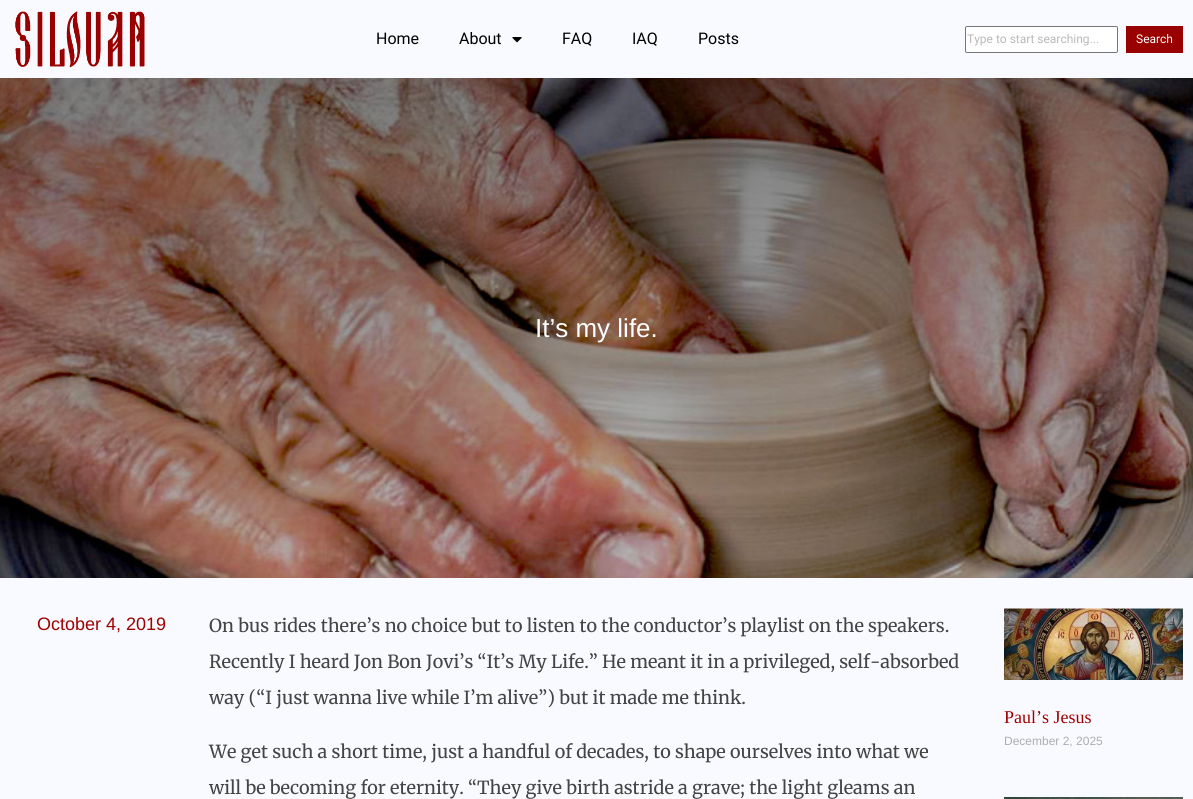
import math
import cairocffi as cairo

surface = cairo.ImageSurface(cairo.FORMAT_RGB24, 1193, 799)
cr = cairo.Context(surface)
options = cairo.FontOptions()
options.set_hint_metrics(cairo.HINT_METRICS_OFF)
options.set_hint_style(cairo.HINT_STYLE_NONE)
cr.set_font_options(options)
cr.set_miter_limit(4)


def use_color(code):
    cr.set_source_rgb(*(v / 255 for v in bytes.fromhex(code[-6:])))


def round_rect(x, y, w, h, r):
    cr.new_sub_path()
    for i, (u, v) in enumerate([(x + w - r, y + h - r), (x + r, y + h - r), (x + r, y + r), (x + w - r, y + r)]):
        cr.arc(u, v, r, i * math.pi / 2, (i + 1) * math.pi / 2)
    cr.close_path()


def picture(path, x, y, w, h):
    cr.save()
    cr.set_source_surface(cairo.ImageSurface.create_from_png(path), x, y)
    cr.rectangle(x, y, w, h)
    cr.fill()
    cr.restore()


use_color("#f9faff")
cr.paint()
picture("img1.png", 15, 11, 130, 57)
cr.select_font_face("Roboto")
cr.set_font_size(16)
use_color("#000000")
cr.move_to(376, 44)
cr.show_text("Home")
cr.move_to(459, 44)
cr.show_text("About")
picture("img2.png", 512, 37, 10, 6)
cr.move_to(562, 44)
cr.show_text("FAQ")
cr.move_to(632, 44)
cr.show_text("IAQ")
cr.move_to(698, 44)
cr.show_text("Posts")
use_color("#ffffff")
round_rect(965.5, 26.5, 152, 26, 1.5)
cr.fill_preserve()
use_color("#767676")
cr.set_line_width(1)
cr.stroke()
cr.set_font_size(12)
use_color("#bbb8b8")
cr.move_to(967, 43)
cr.show_text("Type to start searching...")
use_color("#990000")
cr.rectangle(1126, 26, 57, 27)
cr.fill()
use_color("#ffffff")
cr.move_to(1136, 43)
cr.show_text("Search")
picture("img3.png", 0, 78, 1193, 500)
cr.select_font_face("Liberation Sans")
cr.set_font_size(26)
cr.move_to(535, 337)
cr.show_text("It’s my life.")
cr.set_font_size(18)
use_color("#9f0000")
cr.move_to(37, 630)
cr.show_text("October 4, 2019")
cr.select_font_face("Merriweather")
use_color("#444444")
cr.move_to(209, 632)
cr.show_text("On bus rides there’s no choice but to listen to the conductor’s playlist on the speakers.")
cr.move_to(209, 668)
cr.show_text("Recently I heard Jon Bon Jovi’s “It’s My Life.” He meant it in a privileged, self-absorbed")
cr.move_to(209, 704)
cr.show_text("way (“I just wanna live while I’m alive”) but it made me think.")
cr.move_to(209, 758)
cr.show_text("We get such a short time, just a handful of decades, to shape ourselves into what we")
cr.move_to(209, 794)
cr.show_text("will be becoming for eternity. “They give birth astride a grave; the light gleams an")
picture("img4.png", 1004, 608, 179, 72)
cr.select_font_face("Liberation Serif")
use_color("#9f0000")
cr.move_to(1004, 723)
cr.show_text("Paul’s Jesus")
cr.select_font_face("Liberation Sans")
cr.set_font_size(12)
use_color("#adadad")
cr.move_to(1004, 745)
cr.show_text("December 2, 2025")
picture("img5.png", 1004, 797, 179, 2)
surface.write_to_png("result.png")
